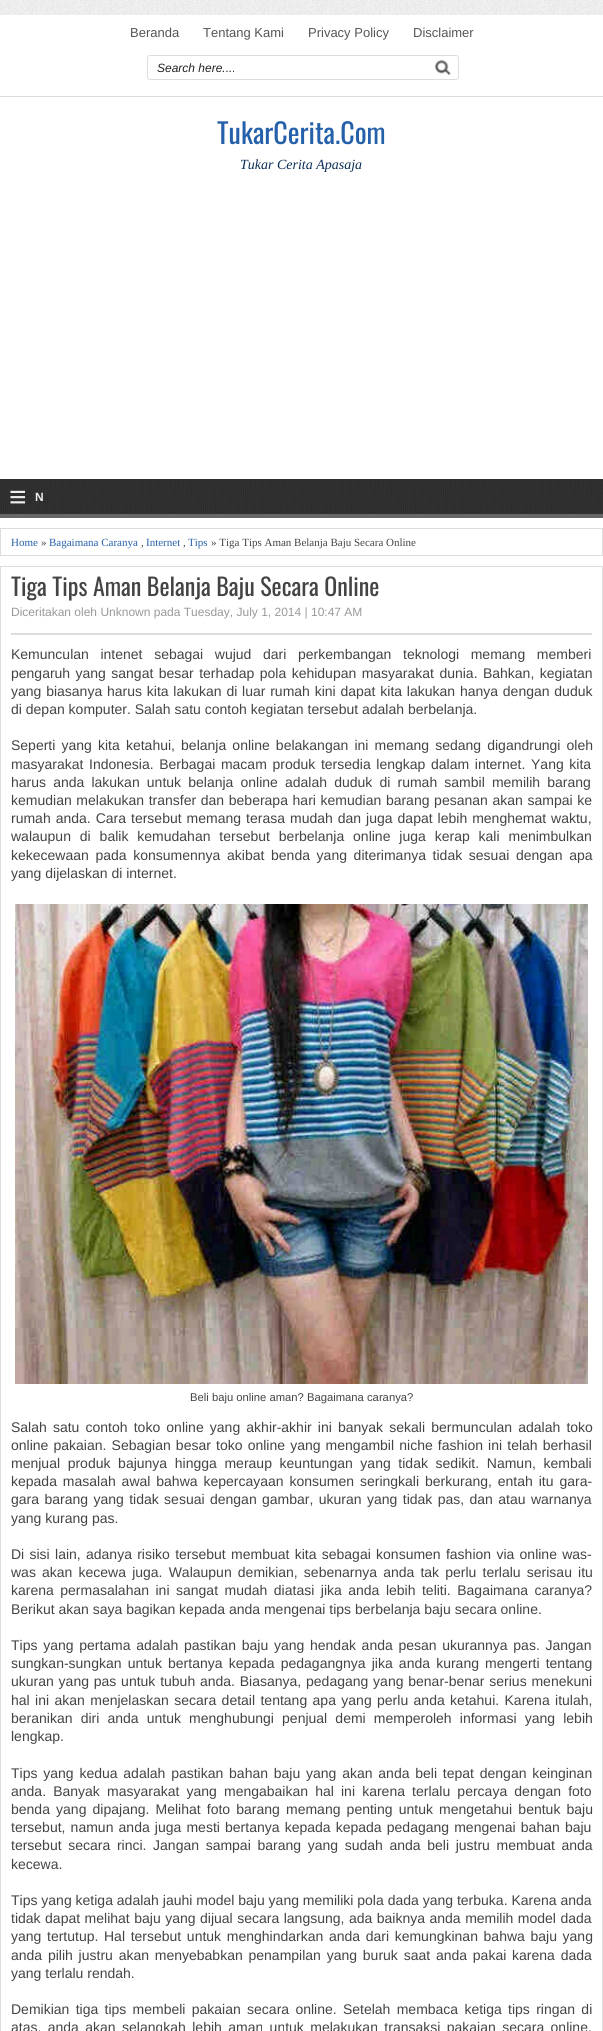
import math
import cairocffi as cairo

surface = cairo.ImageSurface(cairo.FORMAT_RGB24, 603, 2031)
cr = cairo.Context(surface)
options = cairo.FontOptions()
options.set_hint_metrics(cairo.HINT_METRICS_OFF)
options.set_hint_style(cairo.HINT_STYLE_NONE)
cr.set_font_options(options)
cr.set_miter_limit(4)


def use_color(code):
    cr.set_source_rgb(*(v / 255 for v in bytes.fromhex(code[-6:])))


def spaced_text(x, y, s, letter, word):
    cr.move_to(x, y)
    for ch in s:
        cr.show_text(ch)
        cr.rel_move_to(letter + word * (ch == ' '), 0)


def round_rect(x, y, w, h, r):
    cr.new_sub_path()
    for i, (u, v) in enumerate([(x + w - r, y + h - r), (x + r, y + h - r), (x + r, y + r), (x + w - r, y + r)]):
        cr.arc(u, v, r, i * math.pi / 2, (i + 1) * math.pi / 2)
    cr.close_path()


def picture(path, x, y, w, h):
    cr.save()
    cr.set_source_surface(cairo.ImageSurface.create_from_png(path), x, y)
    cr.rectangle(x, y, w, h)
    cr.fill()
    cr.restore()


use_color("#ffffff")
cr.paint()
picture("img1.png", 0, 0, 603, 15)
use_color("#dddddd")
cr.rectangle(0, 96, 603, 1)
cr.fill()
cr.select_font_face("Liberation Sans")
cr.set_font_size(13)
use_color("#555555")
cr.move_to(130, 37)
cr.show_text("Beranda")
cr.move_to(203, 37)
cr.show_text("Tentang Kami")
cr.move_to(308, 37)
cr.show_text("Privacy Policy")
cr.move_to(413, 37)
cr.show_text("Disclaimer")
round_rect(147.5, 55.5, 311, 24, 2.5)
use_color("#dddddd")
cr.set_line_width(1)
cr.stroke()
cr.select_font_face("Liberation Sans", cairo.FONT_SLANT_ITALIC)
cr.set_font_size(12)
use_color("#222222")
cr.move_to(157, 72)
cr.show_text("Search here....")
picture("img2.png", 434, 59, 17, 17)
cr.select_font_face("Oswald")
cr.set_font_size(28)
use_color("#2560aa")
cr.move_to(217, 144)
cr.show_text("TukarCerita.Com")
cr.select_font_face("Liberation Serif", cairo.FONT_SLANT_ITALIC)
cr.set_font_size(14)
use_color("#0a2e56")
cr.move_to(240, 169)
cr.show_text("Tukar Cerita Apasaja")
picture("img3.png", 0, 479, 603, 35)
use_color("#666666")
cr.rectangle(0, 514, 603, 4)
cr.fill()
cr.select_font_face("Liberation Sans", cairo.FONT_SLANT_NORMAL, cairo.FONT_WEIGHT_BOLD)
cr.set_font_size(30)
use_color("#eeeeee")
cr.move_to(9, 507)
cr.show_text("≡")
cr.set_font_size(12)
cr.move_to(35, 501)
cr.show_text("N")
cr.rectangle(0.5, 528.5, 602, 27)
use_color("#dddddd")
cr.stroke()
cr.select_font_face("Liberation Serif")
cr.set_font_size(11)
use_color("#2560aa")
cr.move_to(11, 546)
cr.show_text("Home")
use_color("#444444")
cr.move_to(41, 546)
cr.show_text("»")
use_color("#2560aa")
cr.move_to(49, 546)
cr.show_text("Bagaimana Caranya")
use_color("#444444")
cr.move_to(141, 546)
cr.show_text(",")
use_color("#2560aa")
cr.move_to(146, 546)
cr.show_text("Internet")
use_color("#444444")
cr.move_to(183, 546)
cr.show_text(",")
use_color("#2560aa")
cr.move_to(188, 546)
cr.show_text("Tips")
use_color("#444444")
cr.move_to(211, 546)
cr.show_text("» Tiga Tips Aman Belanja Baju Secara Online")
cr.rectangle(0.5, 566.5, 602, 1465)
use_color("#dddddd")
cr.stroke()
cr.select_font_face("Oswald")
cr.set_font_size(24)
use_color("#444444")
cr.move_to(11, 596)
cr.show_text("Tiga Tips Aman Belanja Baju Secara Online")
cr.select_font_face("Liberation Sans")
cr.set_font_size(12)
use_color("#999999")
cr.move_to(11, 616)
cr.show_text("Diceritakan oleh Unknown pada Tuesday, July 1, 2014 | 10:47 AM")
use_color("#dddddd")
cr.rectangle(11, 633, 581, 2)
cr.fill()
cr.set_font_size(14)
use_color("#444444")
spaced_text(11, 659, "Kemunculan intenet sebagai wujud dari perkembangan teknologi memang memberi", 0, 7.75)
spaced_text(11, 678, "pengaruh yang sangat besar terhadap pola kehidupan masyarakat dunia. Bahkan, kegiatan", 0, 1.5)
spaced_text(11, 696, "yang biasanya harus kita lakukan di luar rumah kini dapat kita lakukan hanya dengan duduk", 0, 0.9)
cr.move_to(11, 714)
cr.show_text("di depan komputer. Salah satu contoh kegiatan tersebut adalah berbelanja.")
spaced_text(11, 750, "Seperti yang kita ketahui, belanja online belakangan ini memang sedang digandrungi oleh", 0, 2.25)
spaced_text(11, 769, "masyarakat Indonesia. Berbagai macam produk tersedia lengkap dalam internet. Yang kita", 0, 1.75)
spaced_text(11, 787, "harus anda lakukan untuk belanja online adalah duduk di rumah sambil memilih barang", 0, 3.25)
spaced_text(11, 805, "kemudian melakukan transfer dan beberapa hari kemudian barang pesanan akan sampai ke", 0, 0.75)
spaced_text(11, 823, "rumah anda. Cara tersebut memang terasa mudah dan juga dapat lebih menghemat waktu,", 0, 1.1)
spaced_text(11, 841, "walaupun di balik kemudahan tersebut berbelanja online juga kerap kali menimbulkan", 0, 5)
spaced_text(11, 860, "kekecewaan pada konsumennya akibat benda yang diterimanya tidak sesuai dengan apa", 0, 2.75)
cr.move_to(11, 878)
cr.show_text("yang dijelaskan di internet.")
picture("img4.png", 15, 904, 573, 480)
cr.set_font_size(11.25)
cr.move_to(190, 1401)
cr.show_text("Beli baju online aman? Bagaimana caranya?")
cr.set_font_size(14)
spaced_text(11, 1432, "Salah satu contoh toko online yang akhir-akhir ini banyak sekali bermunculan adalah toko", 0, 2.25)
spaced_text(11, 1450, "online pakaian. Sebagian besar toko online yang mengambil niche fashion ini telah berhasil", 0, 1.25)
spaced_text(11, 1468, "menjual produk bajunya hingga meraup keuntungan yang tidak sedikit. Namun, kembali", 0, 3.75)
spaced_text(11, 1486, "kepada masalah awal bahwa kepercayaan konsumen seringkali berkurang, entah itu gara-", 0, 2)
spaced_text(11, 1504, "gara barang yang tidak sesuai dengan gambar, ukuran yang tidak pas, dan atau warnanya", 0, 1.5)
cr.move_to(11, 1523)
cr.show_text("yang kurang pas.")
spaced_text(11, 1559, "Di sisi lain, adanya risiko tersebut membuat kita sebagai konsumen fashion via online was-", 0, 1.4)
spaced_text(11, 1577, "was akan kecewa juga. Walaupun demikian, sebenarnya anda tak perlu terlalu serisau itu", 0, 2.25)
spaced_text(11, 1595, "karena permasalahan ini sangat mudah diatasi jika anda lebih teliti. Bagaimana caranya?", 0, 2.6)
cr.move_to(11, 1614)
cr.show_text("Berikut akan saya bagikan kepada anda mengenai tips berbelanja baju secara online.")
spaced_text(11, 1650, "Tips yang pertama adalah pastikan baju yang hendak anda pesan ukurannya pas. Jangan", 0, 1.8)
spaced_text(11, 1668, "sungkan-sungkan untuk bertanya kepada pedagangnya jika anda kurang mengerti tentang", 0, 2.25)
spaced_text(11, 1686, "ukuran yang pas untuk tubuh anda. Biasanya, pedagang yang benar-benar serius menekuni", 0, 0.9)
spaced_text(11, 1705, "hal ini akan menjelaskan secara detail tentang apa yang perlu anda ketahui. Karena itulah,", 0, 1.5)
spaced_text(11, 1723, "beranikan diri anda untuk menghubungi penjual demi memperoleh informasi yang lebih", 0, 4.25)
cr.move_to(11, 1741)
cr.show_text("lengkap.")
spaced_text(11, 1778, "Tips yang kedua adalah pastikan bahan baju yang akan anda beli tepat dengan keinginan", 0, 1.9)
spaced_text(11, 1796, "anda. Banyak masyarakat yang mengabaikan hal ini karena terlalu percaya dengan foto", 0, 3.25)
spaced_text(11, 1814, "benda yang dipajang. Melihat foto barang memang penting untuk mengetahui bentuk baju", 0, 2.25)
spaced_text(11, 1832, "tersebut, namun anda juga mesti bertanya kepada kepada pedagang mengenai bahan baju", 0, 1.25)
spaced_text(11, 1850, "tersebut secara rinci. Jangan sampai barang yang sudah anda beli justru membuat anda", 0, 2.75)
cr.move_to(11, 1869)
cr.show_text("kecewa.")
cr.move_to(11, 1905)
cr.show_text("Tips yang ketiga adalah jauhi model baju yang memiliki pola dada yang terbuka. Karena anda")
spaced_text(11, 1923, "tidak dapat melihat baju yang dijual secara langsung, ada baiknya anda memilih model dada", 0, 0.6)
spaced_text(11, 1941, "yang tertutup. Hal tersebut untuk menghindarkan anda dari kemungkinan bahwa baju yang", 0, 1.75)
spaced_text(11, 1960, "anda pilih justru akan menyebabkan penampilan yang buruk saat anda pakai karena dada", 0, 1.9)
cr.move_to(11, 1978)
cr.show_text("yang terlalu rendah.")
spaced_text(11, 2014, "Demikian tiga tips membeli pakaian secara online. Setelah membaca ketiga tips ringan di", 0, 2.4)
spaced_text(11, 2032, "atas, anda akan selangkah lebih aman untuk melakukan transaksi pakaian secara online.", 0, 2.5)
surface.write_to_png("result.png")
